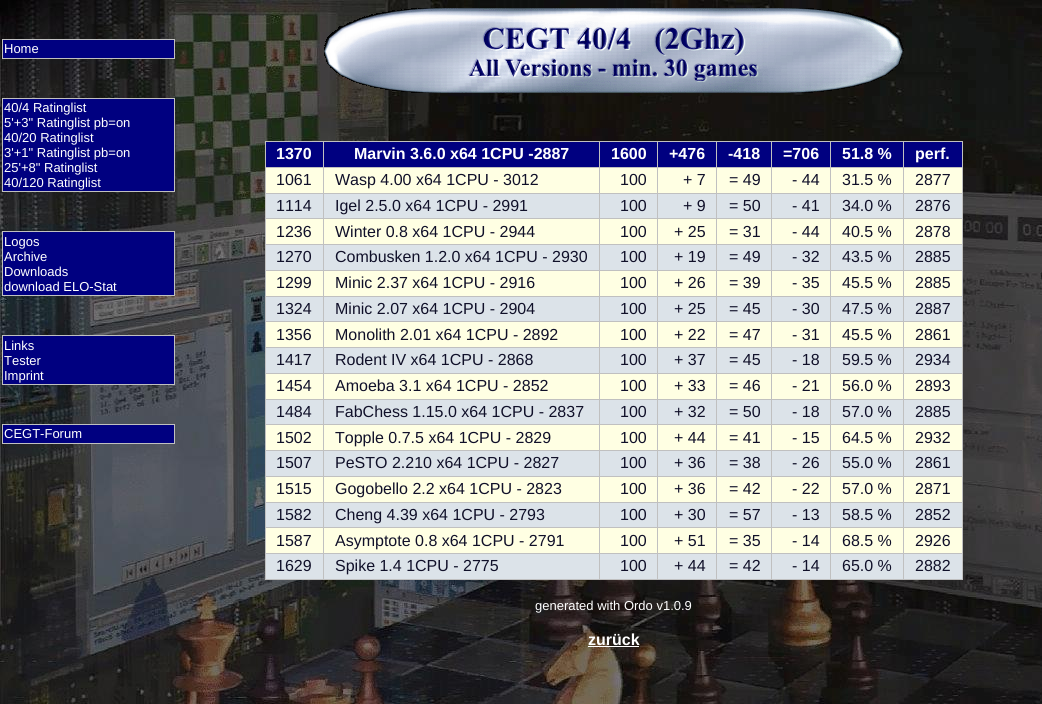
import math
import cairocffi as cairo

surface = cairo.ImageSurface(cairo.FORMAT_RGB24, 1042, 704)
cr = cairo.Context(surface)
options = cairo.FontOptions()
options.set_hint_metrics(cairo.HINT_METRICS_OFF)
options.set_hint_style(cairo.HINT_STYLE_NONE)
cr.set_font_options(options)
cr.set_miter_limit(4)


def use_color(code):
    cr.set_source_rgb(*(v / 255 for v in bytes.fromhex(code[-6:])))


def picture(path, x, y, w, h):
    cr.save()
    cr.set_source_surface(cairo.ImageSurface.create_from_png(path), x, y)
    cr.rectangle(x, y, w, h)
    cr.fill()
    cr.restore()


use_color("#ffffff")
cr.paint()
picture("img1.png", 0, 0, 1042, 704)
use_color("#000080")
cr.rectangle(2.5, 39.5, 172, 19)
cr.fill_preserve()
use_color("#c0c0c0")
cr.set_line_width(1)
cr.stroke()
cr.select_font_face("Liberation Sans")
cr.set_font_size(13)
use_color("#ffffff")
cr.move_to(4, 53)
cr.show_text("Home")
use_color("#000080")
cr.rectangle(2.5, 98.5, 172, 93)
cr.fill_preserve()
use_color("#c0c0c0")
cr.stroke()
use_color("#ffffff")
cr.move_to(4, 112)
cr.show_text("40/4 Ratinglist")
cr.move_to(4, 127)
cr.show_text("5'+3\" Ratinglist pb=on")
cr.move_to(4, 142)
cr.show_text("40/20 Ratinglist")
cr.move_to(4, 157)
cr.show_text("3'+1\" Ratinglist pb=on")
cr.move_to(4, 172)
cr.show_text("25'+8\" Ratinglist")
cr.move_to(4, 187)
cr.show_text("40/120 Ratinglist")
use_color("#000080")
cr.rectangle(2.5, 231.5, 172, 64)
cr.fill_preserve()
use_color("#c0c0c0")
cr.stroke()
use_color("#ffffff")
cr.move_to(4, 246)
cr.show_text("Logos")
cr.move_to(4, 261)
cr.show_text("Archive")
cr.move_to(4, 276)
cr.show_text("Downloads")
cr.move_to(4, 291)
cr.show_text("download ELO-Stat")
use_color("#000080")
cr.rectangle(2.5, 335.5, 172, 49)
cr.fill_preserve()
use_color("#c0c0c0")
cr.stroke()
use_color("#ffffff")
cr.move_to(4, 350)
cr.show_text("Links")
cr.move_to(4, 365)
cr.show_text("Tester")
cr.move_to(4, 380)
cr.show_text("Imprint")
use_color("#000080")
cr.rectangle(2.5, 424.5, 172, 19)
cr.fill_preserve()
use_color("#c0c0c0")
cr.stroke()
use_color("#ffffff")
cr.move_to(4, 438)
cr.show_text("CEGT-Forum")
picture("img2.png", 324, 8, 580, 85)
use_color("#000080")
cr.rectangle(266, 142, 696, 25)
cr.fill()
use_color("#c0c0c0")
cr.rectangle(903, 141, 60, 1)
cr.fill()
cr.rectangle(903, 167, 60, 1)
cr.fill()
use_color("#ffffe3")
cr.rectangle(266, 168, 696, 25)
cr.fill()
use_color("#c0c0c0")
cr.rectangle(903, 193, 60, 1)
cr.fill()
use_color("#dce3e9")
cr.rectangle(266, 194, 696, 24)
cr.fill()
use_color("#c0c0c0")
cr.rectangle(903, 218, 60, 1)
cr.fill()
use_color("#ffffe3")
cr.rectangle(266, 219, 696, 25)
cr.fill()
use_color("#c0c0c0")
cr.rectangle(903, 244, 60, 1)
cr.fill()
use_color("#dce3e9")
cr.rectangle(266, 245, 696, 25)
cr.fill()
use_color("#c0c0c0")
cr.rectangle(903, 270, 60, 1)
cr.fill()
use_color("#ffffe3")
cr.rectangle(266, 271, 696, 25)
cr.fill()
use_color("#c0c0c0")
cr.rectangle(903, 296, 60, 1)
cr.fill()
use_color("#dce3e9")
cr.rectangle(266, 297, 696, 24)
cr.fill()
use_color("#c0c0c0")
cr.rectangle(903, 321, 60, 1)
cr.fill()
use_color("#ffffe3")
cr.rectangle(266, 322, 696, 25)
cr.fill()
use_color("#c0c0c0")
cr.rectangle(903, 347, 60, 1)
cr.fill()
use_color("#dce3e9")
cr.rectangle(266, 348, 696, 25)
cr.fill()
use_color("#c0c0c0")
cr.rectangle(903, 373, 60, 1)
cr.fill()
use_color("#ffffe3")
cr.rectangle(266, 374, 696, 25)
cr.fill()
use_color("#c0c0c0")
cr.rectangle(903, 399, 60, 1)
cr.fill()
use_color("#dce3e9")
cr.rectangle(266, 400, 696, 24)
cr.fill()
use_color("#c0c0c0")
cr.rectangle(903, 424, 60, 1)
cr.fill()
use_color("#ffffe3")
cr.rectangle(266, 425, 696, 25)
cr.fill()
use_color("#c0c0c0")
cr.rectangle(903, 450, 60, 1)
cr.fill()
use_color("#dce3e9")
cr.rectangle(266, 451, 696, 25)
cr.fill()
use_color("#c0c0c0")
cr.rectangle(903, 476, 60, 1)
cr.fill()
use_color("#ffffe3")
cr.rectangle(266, 477, 696, 25)
cr.fill()
use_color("#c0c0c0")
cr.rectangle(903, 502, 60, 1)
cr.fill()
use_color("#dce3e9")
cr.rectangle(266, 503, 696, 24)
cr.fill()
use_color("#c0c0c0")
cr.rectangle(903, 527, 60, 1)
cr.fill()
use_color("#ffffe3")
cr.rectangle(266, 528, 696, 25)
cr.fill()
use_color("#c0c0c0")
cr.rectangle(903, 553, 60, 1)
cr.fill()
use_color("#dce3e9")
cr.rectangle(266, 554, 696, 25)
cr.fill()
use_color("#c0c0c0")
cr.rectangle(962, 553, 1, 27)
cr.fill()
cr.rectangle(903, 579, 60, 1)
cr.fill()
cr.rectangle(903, 553, 1, 27)
cr.fill()
cr.rectangle(830, 553, 74, 1)
cr.fill()
cr.rectangle(903, 527, 1, 27)
cr.fill()
cr.rectangle(830, 527, 74, 1)
cr.fill()
cr.rectangle(903, 502, 1, 26)
cr.fill()
cr.rectangle(830, 502, 74, 1)
cr.fill()
cr.rectangle(903, 476, 1, 27)
cr.fill()
cr.rectangle(830, 476, 74, 1)
cr.fill()
cr.rectangle(903, 450, 1, 27)
cr.fill()
cr.rectangle(830, 450, 74, 1)
cr.fill()
cr.rectangle(903, 424, 1, 27)
cr.fill()
cr.rectangle(830, 424, 74, 1)
cr.fill()
cr.rectangle(903, 399, 1, 26)
cr.fill()
cr.rectangle(830, 399, 74, 1)
cr.fill()
cr.rectangle(903, 373, 1, 27)
cr.fill()
cr.rectangle(830, 373, 74, 1)
cr.fill()
cr.rectangle(903, 347, 1, 27)
cr.fill()
cr.rectangle(830, 347, 74, 1)
cr.fill()
cr.rectangle(903, 321, 1, 27)
cr.fill()
cr.rectangle(830, 321, 74, 1)
cr.fill()
cr.rectangle(903, 296, 1, 26)
cr.fill()
cr.rectangle(830, 296, 74, 1)
cr.fill()
cr.rectangle(903, 270, 1, 27)
cr.fill()
cr.rectangle(830, 270, 74, 1)
cr.fill()
cr.rectangle(903, 244, 1, 27)
cr.fill()
cr.rectangle(830, 244, 74, 1)
cr.fill()
cr.rectangle(903, 218, 1, 27)
cr.fill()
cr.rectangle(830, 218, 74, 1)
cr.fill()
cr.rectangle(903, 193, 1, 26)
cr.fill()
cr.rectangle(830, 193, 74, 1)
cr.fill()
cr.rectangle(903, 167, 1, 27)
cr.fill()
cr.rectangle(830, 167, 74, 1)
cr.fill()
cr.rectangle(903, 141, 1, 27)
cr.fill()
cr.rectangle(830, 141, 74, 1)
cr.fill()
cr.rectangle(830, 579, 74, 1)
cr.fill()
cr.rectangle(830, 553, 1, 27)
cr.fill()
cr.rectangle(771, 553, 60, 1)
cr.fill()
cr.rectangle(830, 527, 1, 27)
cr.fill()
cr.rectangle(771, 527, 60, 1)
cr.fill()
cr.rectangle(830, 502, 1, 26)
cr.fill()
cr.rectangle(771, 502, 60, 1)
cr.fill()
cr.rectangle(830, 476, 1, 27)
cr.fill()
cr.rectangle(771, 476, 60, 1)
cr.fill()
cr.rectangle(830, 450, 1, 27)
cr.fill()
cr.rectangle(771, 450, 60, 1)
cr.fill()
cr.rectangle(830, 424, 1, 27)
cr.fill()
cr.rectangle(771, 424, 60, 1)
cr.fill()
cr.rectangle(830, 399, 1, 26)
cr.fill()
cr.rectangle(771, 399, 60, 1)
cr.fill()
cr.rectangle(830, 373, 1, 27)
cr.fill()
cr.rectangle(771, 373, 60, 1)
cr.fill()
cr.rectangle(830, 347, 1, 27)
cr.fill()
cr.rectangle(771, 347, 60, 1)
cr.fill()
cr.rectangle(830, 321, 1, 27)
cr.fill()
cr.rectangle(771, 321, 60, 1)
cr.fill()
cr.rectangle(830, 296, 1, 26)
cr.fill()
cr.rectangle(771, 296, 60, 1)
cr.fill()
cr.rectangle(830, 270, 1, 27)
cr.fill()
cr.rectangle(771, 270, 60, 1)
cr.fill()
cr.rectangle(830, 244, 1, 27)
cr.fill()
cr.rectangle(771, 244, 60, 1)
cr.fill()
cr.rectangle(830, 218, 1, 27)
cr.fill()
cr.rectangle(771, 218, 60, 1)
cr.fill()
cr.rectangle(830, 193, 1, 26)
cr.fill()
cr.rectangle(771, 193, 60, 1)
cr.fill()
cr.rectangle(830, 167, 1, 27)
cr.fill()
cr.rectangle(771, 167, 60, 1)
cr.fill()
cr.rectangle(830, 141, 1, 27)
cr.fill()
cr.rectangle(771, 141, 60, 1)
cr.fill()
cr.rectangle(771, 579, 60, 1)
cr.fill()
cr.rectangle(771, 553, 1, 27)
cr.fill()
cr.rectangle(716, 553, 56, 1)
cr.fill()
cr.rectangle(771, 527, 1, 27)
cr.fill()
cr.rectangle(716, 527, 56, 1)
cr.fill()
cr.rectangle(771, 502, 1, 26)
cr.fill()
cr.rectangle(716, 502, 56, 1)
cr.fill()
cr.rectangle(771, 476, 1, 27)
cr.fill()
cr.rectangle(716, 476, 56, 1)
cr.fill()
cr.rectangle(771, 450, 1, 27)
cr.fill()
cr.rectangle(716, 450, 56, 1)
cr.fill()
cr.rectangle(771, 424, 1, 27)
cr.fill()
cr.rectangle(716, 424, 56, 1)
cr.fill()
cr.rectangle(771, 399, 1, 26)
cr.fill()
cr.rectangle(716, 399, 56, 1)
cr.fill()
cr.rectangle(771, 373, 1, 27)
cr.fill()
cr.rectangle(716, 373, 56, 1)
cr.fill()
cr.rectangle(771, 347, 1, 27)
cr.fill()
cr.rectangle(716, 347, 56, 1)
cr.fill()
cr.rectangle(771, 321, 1, 27)
cr.fill()
cr.rectangle(716, 321, 56, 1)
cr.fill()
cr.rectangle(771, 296, 1, 26)
cr.fill()
cr.rectangle(716, 296, 56, 1)
cr.fill()
cr.rectangle(771, 270, 1, 27)
cr.fill()
cr.rectangle(716, 270, 56, 1)
cr.fill()
cr.rectangle(771, 244, 1, 27)
cr.fill()
cr.rectangle(716, 244, 56, 1)
cr.fill()
cr.rectangle(771, 218, 1, 27)
cr.fill()
cr.rectangle(716, 218, 56, 1)
cr.fill()
cr.rectangle(771, 193, 1, 26)
cr.fill()
cr.rectangle(716, 193, 56, 1)
cr.fill()
cr.rectangle(771, 167, 1, 27)
cr.fill()
cr.rectangle(716, 167, 56, 1)
cr.fill()
cr.rectangle(771, 141, 1, 27)
cr.fill()
cr.rectangle(716, 141, 56, 1)
cr.fill()
cr.rectangle(716, 579, 56, 1)
cr.fill()
cr.rectangle(716, 553, 1, 27)
cr.fill()
cr.rectangle(657, 553, 60, 1)
cr.fill()
cr.rectangle(716, 527, 1, 27)
cr.fill()
cr.rectangle(657, 527, 60, 1)
cr.fill()
cr.rectangle(716, 502, 1, 26)
cr.fill()
cr.rectangle(657, 502, 60, 1)
cr.fill()
cr.rectangle(716, 476, 1, 27)
cr.fill()
cr.rectangle(657, 476, 60, 1)
cr.fill()
cr.rectangle(716, 450, 1, 27)
cr.fill()
cr.rectangle(657, 450, 60, 1)
cr.fill()
cr.rectangle(716, 424, 1, 27)
cr.fill()
cr.rectangle(657, 424, 60, 1)
cr.fill()
cr.rectangle(716, 399, 1, 26)
cr.fill()
cr.rectangle(657, 399, 60, 1)
cr.fill()
cr.rectangle(716, 373, 1, 27)
cr.fill()
cr.rectangle(657, 373, 60, 1)
cr.fill()
cr.rectangle(716, 347, 1, 27)
cr.fill()
cr.rectangle(657, 347, 60, 1)
cr.fill()
cr.rectangle(716, 321, 1, 27)
cr.fill()
cr.rectangle(657, 321, 60, 1)
cr.fill()
cr.rectangle(716, 296, 1, 26)
cr.fill()
cr.rectangle(657, 296, 60, 1)
cr.fill()
cr.rectangle(716, 270, 1, 27)
cr.fill()
cr.rectangle(657, 270, 60, 1)
cr.fill()
cr.rectangle(716, 244, 1, 27)
cr.fill()
cr.rectangle(657, 244, 60, 1)
cr.fill()
cr.rectangle(716, 218, 1, 27)
cr.fill()
cr.rectangle(657, 218, 60, 1)
cr.fill()
cr.rectangle(716, 193, 1, 26)
cr.fill()
cr.rectangle(657, 193, 60, 1)
cr.fill()
cr.rectangle(716, 167, 1, 27)
cr.fill()
cr.rectangle(657, 167, 60, 1)
cr.fill()
cr.rectangle(716, 141, 1, 27)
cr.fill()
cr.rectangle(657, 141, 60, 1)
cr.fill()
cr.rectangle(657, 579, 60, 1)
cr.fill()
cr.rectangle(657, 553, 1, 27)
cr.fill()
cr.rectangle(599, 553, 59, 1)
cr.fill()
cr.rectangle(657, 527, 1, 27)
cr.fill()
cr.rectangle(599, 527, 59, 1)
cr.fill()
cr.rectangle(657, 502, 1, 26)
cr.fill()
cr.rectangle(599, 502, 59, 1)
cr.fill()
cr.rectangle(657, 476, 1, 27)
cr.fill()
cr.rectangle(599, 476, 59, 1)
cr.fill()
cr.rectangle(657, 450, 1, 27)
cr.fill()
cr.rectangle(599, 450, 59, 1)
cr.fill()
cr.rectangle(657, 424, 1, 27)
cr.fill()
cr.rectangle(599, 424, 59, 1)
cr.fill()
cr.rectangle(657, 399, 1, 26)
cr.fill()
cr.rectangle(599, 399, 59, 1)
cr.fill()
cr.rectangle(657, 373, 1, 27)
cr.fill()
cr.rectangle(599, 373, 59, 1)
cr.fill()
cr.rectangle(657, 347, 1, 27)
cr.fill()
cr.rectangle(599, 347, 59, 1)
cr.fill()
cr.rectangle(657, 321, 1, 27)
cr.fill()
cr.rectangle(599, 321, 59, 1)
cr.fill()
cr.rectangle(657, 296, 1, 26)
cr.fill()
cr.rectangle(599, 296, 59, 1)
cr.fill()
cr.rectangle(657, 270, 1, 27)
cr.fill()
cr.rectangle(599, 270, 59, 1)
cr.fill()
cr.rectangle(657, 244, 1, 27)
cr.fill()
cr.rectangle(599, 244, 59, 1)
cr.fill()
cr.rectangle(657, 218, 1, 27)
cr.fill()
cr.rectangle(599, 218, 59, 1)
cr.fill()
cr.rectangle(657, 193, 1, 26)
cr.fill()
cr.rectangle(599, 193, 59, 1)
cr.fill()
cr.rectangle(657, 167, 1, 27)
cr.fill()
cr.rectangle(599, 167, 59, 1)
cr.fill()
cr.rectangle(657, 141, 1, 27)
cr.fill()
cr.rectangle(599, 141, 59, 1)
cr.fill()
cr.rectangle(599, 579, 59, 1)
cr.fill()
cr.rectangle(599, 553, 1, 27)
cr.fill()
cr.rectangle(323, 553, 277, 1)
cr.fill()
cr.rectangle(599, 527, 1, 27)
cr.fill()
cr.rectangle(323, 527, 277, 1)
cr.fill()
cr.rectangle(599, 502, 1, 26)
cr.fill()
cr.rectangle(323, 502, 277, 1)
cr.fill()
cr.rectangle(599, 476, 1, 27)
cr.fill()
cr.rectangle(323, 476, 277, 1)
cr.fill()
cr.rectangle(599, 450, 1, 27)
cr.fill()
cr.rectangle(323, 450, 277, 1)
cr.fill()
cr.rectangle(599, 424, 1, 27)
cr.fill()
cr.rectangle(323, 424, 277, 1)
cr.fill()
cr.rectangle(599, 399, 1, 26)
cr.fill()
cr.rectangle(323, 399, 277, 1)
cr.fill()
cr.rectangle(599, 373, 1, 27)
cr.fill()
cr.rectangle(323, 373, 277, 1)
cr.fill()
cr.rectangle(599, 347, 1, 27)
cr.fill()
cr.rectangle(323, 347, 277, 1)
cr.fill()
cr.rectangle(599, 321, 1, 27)
cr.fill()
cr.rectangle(323, 321, 277, 1)
cr.fill()
cr.rectangle(599, 296, 1, 26)
cr.fill()
cr.rectangle(323, 296, 277, 1)
cr.fill()
cr.rectangle(599, 270, 1, 27)
cr.fill()
cr.rectangle(323, 270, 277, 1)
cr.fill()
cr.rectangle(599, 244, 1, 27)
cr.fill()
cr.rectangle(323, 244, 277, 1)
cr.fill()
cr.rectangle(599, 218, 1, 27)
cr.fill()
cr.rectangle(323, 218, 277, 1)
cr.fill()
cr.rectangle(599, 193, 1, 26)
cr.fill()
cr.rectangle(323, 193, 277, 1)
cr.fill()
cr.rectangle(599, 167, 1, 27)
cr.fill()
cr.rectangle(323, 167, 277, 1)
cr.fill()
cr.rectangle(599, 141, 1, 27)
cr.fill()
cr.rectangle(323, 141, 277, 1)
cr.fill()
cr.rectangle(323, 579, 277, 1)
cr.fill()
cr.rectangle(323, 553, 1, 27)
cr.fill()
cr.rectangle(265, 553, 59, 1)
cr.fill()
cr.rectangle(323, 527, 1, 27)
cr.fill()
cr.rectangle(265, 527, 59, 1)
cr.fill()
cr.rectangle(323, 502, 1, 26)
cr.fill()
cr.rectangle(265, 502, 59, 1)
cr.fill()
cr.rectangle(323, 476, 1, 27)
cr.fill()
cr.rectangle(265, 476, 59, 1)
cr.fill()
cr.rectangle(323, 450, 1, 27)
cr.fill()
cr.rectangle(265, 450, 59, 1)
cr.fill()
cr.rectangle(323, 424, 1, 27)
cr.fill()
cr.rectangle(265, 424, 59, 1)
cr.fill()
cr.rectangle(323, 399, 1, 26)
cr.fill()
cr.rectangle(265, 399, 59, 1)
cr.fill()
cr.rectangle(323, 373, 1, 27)
cr.fill()
cr.rectangle(265, 373, 59, 1)
cr.fill()
cr.rectangle(323, 347, 1, 27)
cr.fill()
cr.rectangle(265, 347, 59, 1)
cr.fill()
cr.rectangle(323, 321, 1, 27)
cr.fill()
cr.rectangle(265, 321, 59, 1)
cr.fill()
cr.rectangle(323, 296, 1, 26)
cr.fill()
cr.rectangle(265, 296, 59, 1)
cr.fill()
cr.rectangle(323, 270, 1, 27)
cr.fill()
cr.rectangle(265, 270, 59, 1)
cr.fill()
cr.rectangle(323, 244, 1, 27)
cr.fill()
cr.rectangle(265, 244, 59, 1)
cr.fill()
cr.rectangle(323, 218, 1, 27)
cr.fill()
cr.rectangle(265, 218, 59, 1)
cr.fill()
cr.rectangle(323, 193, 1, 26)
cr.fill()
cr.rectangle(265, 193, 59, 1)
cr.fill()
cr.rectangle(323, 167, 1, 27)
cr.fill()
cr.rectangle(265, 167, 59, 1)
cr.fill()
cr.rectangle(323, 141, 1, 27)
cr.fill()
cr.rectangle(265, 141, 59, 1)
cr.fill()
cr.rectangle(265, 579, 59, 1)
cr.fill()
cr.rectangle(265, 553, 1, 27)
cr.fill()
cr.rectangle(265, 527, 1, 27)
cr.fill()
cr.rectangle(265, 502, 1, 26)
cr.fill()
cr.rectangle(265, 476, 1, 27)
cr.fill()
cr.rectangle(265, 450, 1, 27)
cr.fill()
cr.rectangle(265, 424, 1, 27)
cr.fill()
cr.rectangle(265, 399, 1, 26)
cr.fill()
cr.rectangle(265, 373, 1, 27)
cr.fill()
cr.rectangle(265, 347, 1, 27)
cr.fill()
cr.rectangle(265, 321, 1, 27)
cr.fill()
cr.rectangle(265, 296, 1, 26)
cr.fill()
cr.rectangle(265, 270, 1, 27)
cr.fill()
cr.rectangle(265, 244, 1, 27)
cr.fill()
cr.rectangle(265, 218, 1, 27)
cr.fill()
cr.rectangle(265, 193, 1, 26)
cr.fill()
cr.rectangle(265, 167, 1, 27)
cr.fill()
cr.rectangle(265, 141, 1, 27)
cr.fill()
cr.select_font_face("Liberation Sans", cairo.FONT_SLANT_NORMAL, cairo.FONT_WEIGHT_BOLD)
cr.set_font_size(16)
use_color("#ffffff")
cr.move_to(276, 159)
cr.show_text("1370")
cr.move_to(354, 159)
cr.show_text("Marvin 3.6.0 x64 1CPU -2887")
cr.move_to(611, 159)
cr.show_text("1600")
cr.move_to(669, 159)
cr.show_text("+476")
cr.move_to(728, 159)
cr.show_text("-418")
cr.move_to(783, 159)
cr.show_text("=706")
cr.move_to(842, 159)
cr.show_text("51.8 %")
use_color("#c0c0c0")
cr.rectangle(962, 527, 1, 27)
cr.fill()
cr.rectangle(962, 502, 1, 26)
cr.fill()
cr.rectangle(962, 476, 1, 27)
cr.fill()
cr.rectangle(962, 450, 1, 27)
cr.fill()
cr.rectangle(962, 424, 1, 27)
cr.fill()
cr.rectangle(962, 399, 1, 26)
cr.fill()
cr.rectangle(962, 373, 1, 27)
cr.fill()
cr.rectangle(962, 347, 1, 27)
cr.fill()
cr.rectangle(962, 321, 1, 27)
cr.fill()
cr.rectangle(962, 296, 1, 26)
cr.fill()
cr.rectangle(962, 270, 1, 27)
cr.fill()
cr.rectangle(962, 244, 1, 27)
cr.fill()
cr.rectangle(962, 218, 1, 27)
cr.fill()
cr.rectangle(962, 193, 1, 26)
cr.fill()
cr.rectangle(962, 167, 1, 27)
cr.fill()
cr.rectangle(962, 141, 1, 27)
cr.fill()
use_color("#ffffff")
cr.move_to(915, 159)
cr.show_text("perf.")
cr.select_font_face("Liberation Sans")
use_color("#101029")
cr.move_to(276, 185)
cr.show_text("1061")
cr.move_to(335, 185)
cr.show_text("Wasp 4.00 x64 1CPU - 3012")
cr.move_to(620, 185)
cr.show_text("100")
cr.move_to(683, 185)
cr.show_text("+ 7")
cr.move_to(729, 185)
cr.show_text("= 49")
cr.move_to(792, 185)
cr.show_text("- 44")
cr.move_to(842, 185)
cr.show_text("31.5 %")
cr.move_to(915, 185)
cr.show_text("2877")
cr.move_to(276, 211)
cr.show_text("1114")
cr.move_to(335, 211)
cr.show_text("Igel 2.5.0 x64 1CPU - 2991")
cr.move_to(620, 211)
cr.show_text("100")
cr.move_to(683, 211)
cr.show_text("+ 9")
cr.move_to(729, 211)
cr.show_text("= 50")
cr.move_to(792, 211)
cr.show_text("- 41")
cr.move_to(842, 211)
cr.show_text("34.0 %")
cr.move_to(915, 211)
cr.show_text("2876")
cr.move_to(276, 237)
cr.show_text("1236")
cr.move_to(335, 237)
cr.show_text("Winter 0.8 x64 1CPU - 2944")
cr.move_to(620, 237)
cr.show_text("100")
cr.move_to(674, 237)
cr.show_text("+ 25")
cr.move_to(729, 237)
cr.show_text("= 31")
cr.move_to(792, 237)
cr.show_text("- 44")
cr.move_to(842, 237)
cr.show_text("40.5 %")
cr.move_to(915, 237)
cr.show_text("2878")
cr.move_to(276, 262)
cr.show_text("1270")
cr.move_to(335, 262)
cr.show_text("Combusken 1.2.0 x64 1CPU - 2930")
cr.move_to(620, 262)
cr.show_text("100")
cr.move_to(674, 262)
cr.show_text("+ 19")
cr.move_to(729, 262)
cr.show_text("= 49")
cr.move_to(792, 262)
cr.show_text("- 32")
cr.move_to(842, 262)
cr.show_text("43.5 %")
cr.move_to(915, 262)
cr.show_text("2885")
cr.move_to(276, 288)
cr.show_text("1299")
cr.move_to(335, 288)
cr.show_text("Minic 2.37 x64 1CPU - 2916")
cr.move_to(620, 288)
cr.show_text("100")
cr.move_to(674, 288)
cr.show_text("+ 26")
cr.move_to(729, 288)
cr.show_text("= 39")
cr.move_to(792, 288)
cr.show_text("- 35")
cr.move_to(842, 288)
cr.show_text("45.5 %")
cr.move_to(915, 288)
cr.show_text("2885")
cr.move_to(276, 314)
cr.show_text("1324")
cr.move_to(335, 314)
cr.show_text("Minic 2.07 x64 1CPU - 2904")
cr.move_to(620, 314)
cr.show_text("100")
cr.move_to(674, 314)
cr.show_text("+ 25")
cr.move_to(729, 314)
cr.show_text("= 45")
cr.move_to(792, 314)
cr.show_text("- 30")
cr.move_to(842, 314)
cr.show_text("47.5 %")
cr.move_to(915, 314)
cr.show_text("2887")
cr.move_to(276, 340)
cr.show_text("1356")
cr.move_to(335, 340)
cr.show_text("Monolith 2.01 x64 1CPU - 2892")
cr.move_to(620, 340)
cr.show_text("100")
cr.move_to(674, 340)
cr.show_text("+ 22")
cr.move_to(729, 340)
cr.show_text("= 47")
cr.move_to(792, 340)
cr.show_text("- 31")
cr.move_to(842, 340)
cr.show_text("45.5 %")
cr.move_to(915, 340)
cr.show_text("2861")
cr.move_to(276, 365)
cr.show_text("1417")
cr.move_to(335, 365)
cr.show_text("Rodent IV x64 1CPU - 2868")
cr.move_to(620, 365)
cr.show_text("100")
cr.move_to(674, 365)
cr.show_text("+ 37")
cr.move_to(729, 365)
cr.show_text("= 45")
cr.move_to(792, 365)
cr.show_text("- 18")
cr.move_to(842, 365)
cr.show_text("59.5 %")
cr.move_to(915, 365)
cr.show_text("2934")
cr.move_to(276, 391)
cr.show_text("1454")
cr.move_to(335, 391)
cr.show_text("Amoeba 3.1 x64 1CPU - 2852")
cr.move_to(620, 391)
cr.show_text("100")
cr.move_to(674, 391)
cr.show_text("+ 33")
cr.move_to(729, 391)
cr.show_text("= 46")
cr.move_to(792, 391)
cr.show_text("- 21")
cr.move_to(842, 391)
cr.show_text("56.0 %")
cr.move_to(915, 391)
cr.show_text("2893")
cr.move_to(276, 417)
cr.show_text("1484")
cr.move_to(335, 417)
cr.show_text("FabChess 1.15.0 x64 1CPU - 2837")
cr.move_to(620, 417)
cr.show_text("100")
cr.move_to(674, 417)
cr.show_text("+ 32")
cr.move_to(729, 417)
cr.show_text("= 50")
cr.move_to(792, 417)
cr.show_text("- 18")
cr.move_to(842, 417)
cr.show_text("57.0 %")
cr.move_to(915, 417)
cr.show_text("2885")
cr.move_to(276, 443)
cr.show_text("1502")
cr.move_to(335, 443)
cr.show_text("Topple 0.7.5 x64 1CPU - 2829")
cr.move_to(620, 443)
cr.show_text("100")
cr.move_to(674, 443)
cr.show_text("+ 44")
cr.move_to(729, 443)
cr.show_text("= 41")
cr.move_to(792, 443)
cr.show_text("- 15")
cr.move_to(842, 443)
cr.show_text("64.5 %")
cr.move_to(915, 443)
cr.show_text("2932")
cr.move_to(276, 468)
cr.show_text("1507")
cr.move_to(335, 468)
cr.show_text("PeSTO 2.210 x64 1CPU - 2827")
cr.move_to(620, 468)
cr.show_text("100")
cr.move_to(674, 468)
cr.show_text("+ 36")
cr.move_to(729, 468)
cr.show_text("= 38")
cr.move_to(792, 468)
cr.show_text("- 26")
cr.move_to(842, 468)
cr.show_text("55.0 %")
cr.move_to(915, 468)
cr.show_text("2861")
cr.move_to(276, 494)
cr.show_text("1515")
cr.move_to(335, 494)
cr.show_text("Gogobello 2.2 x64 1CPU - 2823")
cr.move_to(620, 494)
cr.show_text("100")
cr.move_to(674, 494)
cr.show_text("+ 36")
cr.move_to(729, 494)
cr.show_text("= 42")
cr.move_to(792, 494)
cr.show_text("- 22")
cr.move_to(842, 494)
cr.show_text("57.0 %")
cr.move_to(915, 494)
cr.show_text("2871")
cr.move_to(276, 520)
cr.show_text("1582")
cr.move_to(335, 520)
cr.show_text("Cheng 4.39 x64 1CPU - 2793")
cr.move_to(620, 520)
cr.show_text("100")
cr.move_to(674, 520)
cr.show_text("+ 30")
cr.move_to(729, 520)
cr.show_text("= 57")
cr.move_to(792, 520)
cr.show_text("- 13")
cr.move_to(842, 520)
cr.show_text("58.5 %")
cr.move_to(915, 520)
cr.show_text("2852")
cr.move_to(276, 546)
cr.show_text("1587")
cr.move_to(335, 546)
cr.show_text("Asymptote 0.8 x64 1CPU - 2791")
cr.move_to(620, 546)
cr.show_text("100")
cr.move_to(674, 546)
cr.show_text("+ 51")
cr.move_to(729, 546)
cr.show_text("= 35")
cr.move_to(792, 546)
cr.show_text("- 14")
cr.move_to(842, 546)
cr.show_text("68.5 %")
cr.move_to(915, 546)
cr.show_text("2926")
cr.move_to(276, 571)
cr.show_text("1629")
cr.move_to(335, 571)
cr.show_text("Spike 1.4 1CPU - 2775")
cr.move_to(620, 571)
cr.show_text("100")
cr.move_to(674, 571)
cr.show_text("+ 44")
cr.move_to(729, 571)
cr.show_text("= 42")
cr.move_to(792, 571)
cr.show_text("- 14")
cr.move_to(842, 571)
cr.show_text("65.0 %")
cr.move_to(915, 571)
cr.show_text("2882")
cr.set_font_size(13)
use_color("#ffffff")
cr.move_to(535, 610)
cr.show_text("generated with Ordo v1.0.9")
cr.select_font_face("Liberation Sans", cairo.FONT_SLANT_NORMAL, cairo.FONT_WEIGHT_BOLD)
cr.set_font_size(16)
cr.move_to(588, 645)
cr.show_text("zurück")
cr.rectangle(588, 646, 51, 1)
cr.fill()
surface.write_to_png("result.png")
